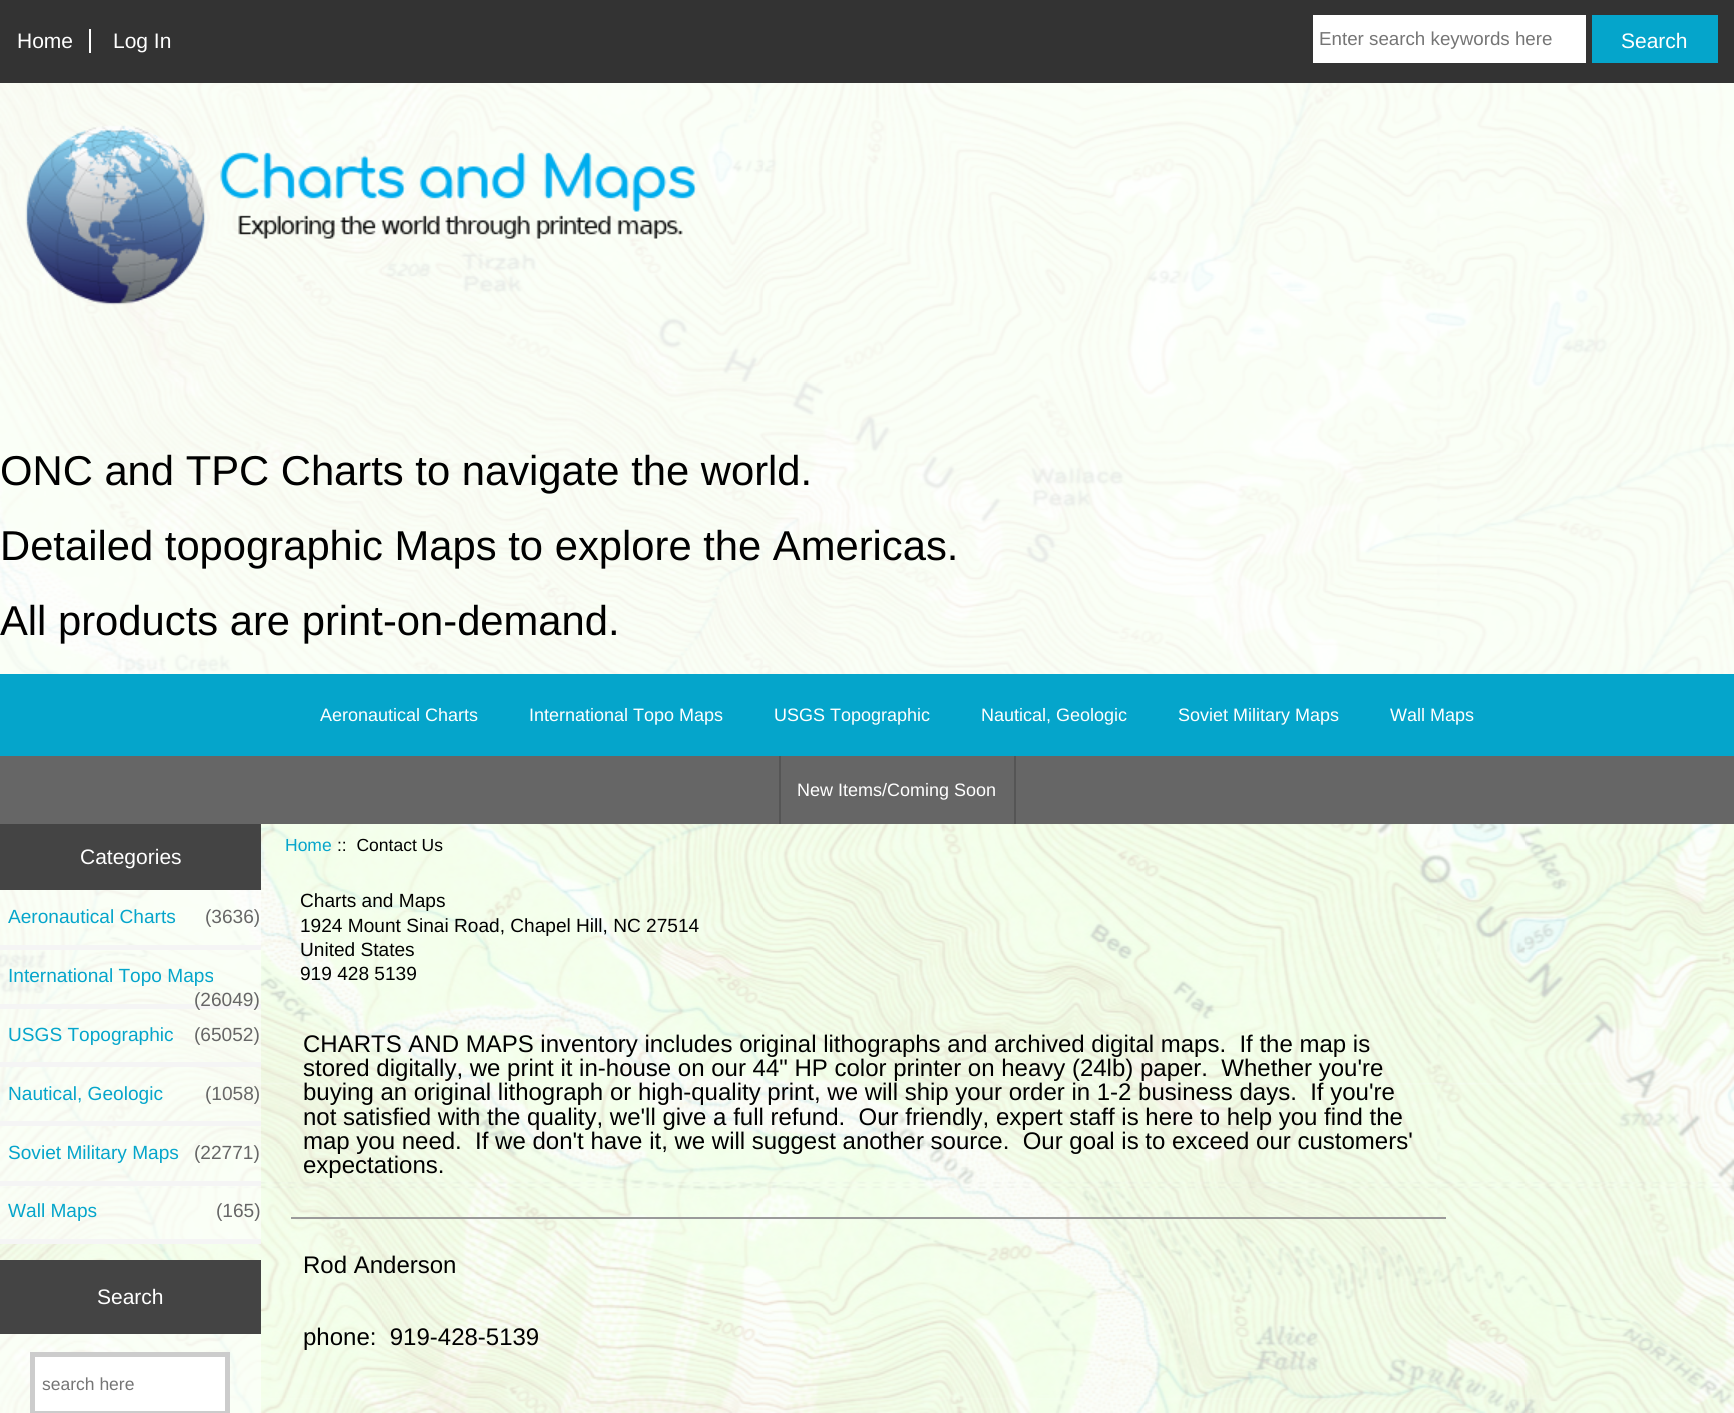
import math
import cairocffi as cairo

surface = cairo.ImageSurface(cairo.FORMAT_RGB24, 1734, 1413)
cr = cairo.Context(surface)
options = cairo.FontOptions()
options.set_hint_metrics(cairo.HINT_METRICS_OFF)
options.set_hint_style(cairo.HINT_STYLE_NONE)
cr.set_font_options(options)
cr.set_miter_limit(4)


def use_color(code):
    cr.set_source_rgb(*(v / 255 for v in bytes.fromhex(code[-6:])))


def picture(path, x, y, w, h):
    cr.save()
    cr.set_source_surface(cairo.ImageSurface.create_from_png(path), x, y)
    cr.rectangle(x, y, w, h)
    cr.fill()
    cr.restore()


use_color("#ffffff")
cr.paint()
picture("img1.png", 0, 83, 1734, 1330)
cr.set_source_rgba(1, 1, 1, 0.55)
cr.rectangle(0, 83, 1734, 591)
cr.fill()
use_color("#333333")
cr.rectangle(0, 0, 1734, 83)
cr.fill()
cr.select_font_face("Liberation Sans")
cr.set_font_size(21)
use_color("#ffffff")
cr.move_to(17, 48)
cr.show_text("Home")
cr.rectangle(89, 29, 2, 24)
cr.fill()
cr.move_to(113, 48)
cr.show_text("Log In")
cr.rectangle(1313, 15, 273, 48)
cr.fill()
cr.set_font_size(18.75)
use_color("#757575")
cr.move_to(1319, 45)
cr.show_text("Enter search keywords here")
use_color("#05a5cb")
cr.rectangle(1592, 15, 126, 48)
cr.fill()
cr.set_font_size(21)
use_color("#ffffff")
cr.move_to(1621, 48)
cr.show_text("Search")
cr.set_source_rgba(1, 1, 1, 0.55)
cr.rectangle(0, 83, 1734, 591)
cr.fill()
picture("img2.png", 25, 125, 671, 180)
cr.set_font_size(41.75)
use_color("#000000")
cr.move_to(0, 485)
cr.show_text("ONC and TPC Charts to navigate the world.")
cr.move_to(0, 560)
cr.show_text("Detailed topographic Maps to explore the Americas.")
cr.move_to(0, 635)
cr.show_text("All products are print-on-demand.")
use_color("#05a5cb")
cr.rectangle(0, 674, 1734, 82)
cr.fill()
cr.set_font_size(18)
use_color("#ffffff")
cr.move_to(320, 721)
cr.show_text("Aeronautical Charts")
cr.move_to(529, 721)
cr.show_text("International Topo Maps")
cr.move_to(774, 721)
cr.show_text("USGS Topographic")
cr.move_to(981, 721)
cr.show_text("Nautical, Geologic")
cr.move_to(1178, 721)
cr.show_text("Soviet Military Maps")
cr.move_to(1390, 721)
cr.show_text("Wall Maps")
use_color("#666666")
cr.rectangle(0, 756, 1734, 68)
cr.fill()
use_color("#555555")
cr.rectangle(1014, 756, 2, 68)
cr.fill()
cr.rectangle(779, 756, 2, 68)
cr.fill()
use_color("#ffffff")
cr.move_to(797, 796)
cr.show_text("New Items/Coming Soon")
cr.set_source_rgba(1, 1, 1, 0.55)
cr.rectangle(0, 824, 1734, 589)
cr.fill()
use_color("#444444")
cr.rectangle(0, 824, 261, 66)
cr.fill()
cr.set_font_size(21)
use_color("#ffffff")
cr.move_to(80, 864)
cr.show_text("Categories")
cr.set_source_rgba(1, 1, 1, 0.55)
cr.rectangle(0, 890, 261, 349)
cr.fill()
use_color("#f5f5f5")
cr.rectangle(0, 945, 261, 5)
cr.fill()
cr.set_font_size(19.1)
use_color("#05a5cb")
cr.move_to(8, 923)
cr.show_text("Aeronautical Charts")
use_color("#666666")
cr.move_to(205, 923)
cr.show_text("(3636)")
use_color("#f5f5f5")
cr.rectangle(0, 1004, 261, 5)
cr.fill()
use_color("#05a5cb")
cr.move_to(8, 982)
cr.show_text("International Topo Maps")
use_color("#666666")
cr.move_to(194, 1006)
cr.show_text("(26049)")
use_color("#f5f5f5")
cr.rectangle(0, 1062, 261, 5)
cr.fill()
use_color("#05a5cb")
cr.move_to(8, 1041)
cr.show_text("USGS Topographic")
use_color("#666666")
cr.move_to(194, 1041)
cr.show_text("(65052)")
use_color("#f5f5f5")
cr.rectangle(0, 1121, 261, 5)
cr.fill()
use_color("#05a5cb")
cr.move_to(8, 1100)
cr.show_text("Nautical, Geologic")
use_color("#666666")
cr.move_to(205, 1100)
cr.show_text("(1058)")
use_color("#f5f5f5")
cr.rectangle(0, 1181, 261, 5)
cr.fill()
use_color("#05a5cb")
cr.move_to(8, 1159)
cr.show_text("Soviet Military Maps")
use_color("#666666")
cr.move_to(194, 1159)
cr.show_text("(22771)")
use_color("#f5f5f5")
cr.rectangle(0, 1239, 261, 5)
cr.fill()
use_color("#05a5cb")
cr.move_to(8, 1217)
cr.show_text("Wall Maps")
use_color("#666666")
cr.move_to(216, 1217)
cr.show_text("(165)")
use_color("#444444")
cr.rectangle(0, 1260, 261, 74)
cr.fill()
cr.set_font_size(21)
use_color("#ffffff")
cr.move_to(97, 1304)
cr.show_text("Search")
cr.set_source_rgba(1, 1, 1, 0.55)
cr.rectangle(0, 1334, 261, 79)
cr.fill()
use_color("#ffffff")
cr.rectangle(32.5, 1354.5, 195, 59)
cr.fill_preserve()
use_color("#cccccc")
cr.set_line_width(5)
cr.stroke()
cr.set_font_size(17.5)
use_color("#757575")
cr.move_to(42, 1390)
cr.show_text("search here")
use_color("#05a5cb")
cr.move_to(285, 851)
cr.show_text("Home")
use_color("#000000")
cr.move_to(337, 851)
cr.show_text("::  Contact Us")
cr.set_font_size(19.1)
cr.move_to(300, 907)
cr.show_text("Charts and Maps")
cr.move_to(300, 932)
cr.show_text("1924 Mount Sinai Road, Chapel Hill, NC 27514")
cr.move_to(300, 956)
cr.show_text("United States")
cr.move_to(300, 980)
cr.show_text("919 428 5139")
cr.set_font_size(24)
cr.move_to(303, 1052)
cr.show_text("CHARTS AND MAPS inventory includes original lithographs and archived digital maps.  If the map is")
cr.move_to(303, 1076)
cr.show_text("stored digitally, we print it in-house on our 44\" HP color printer on heavy (24lb) paper.  Whether you're")
cr.move_to(303, 1100)
cr.show_text("buying an original lithograph or high-quality print, we will ship your order in 1-2 business days.  If you're")
cr.move_to(303, 1125)
cr.show_text("not satisfied with the quality, we'll give a full refund.  Our friendly, expert staff is here to help you find the")
cr.move_to(303, 1149)
cr.show_text("map you need.  If we don't have it, we will suggest another source.  Our goal is to exceed our customers'")
cr.move_to(303, 1173)
cr.show_text("expectations.")
use_color("#9a9a9a")
cr.rectangle(291, 1217, 1155, 2)
cr.fill()
use_color("#000000")
cr.move_to(303, 1273)
cr.show_text("Rod Anderson")
cr.move_to(303, 1345)
cr.show_text("phone:  919-428-5139")
surface.write_to_png("result.png")
